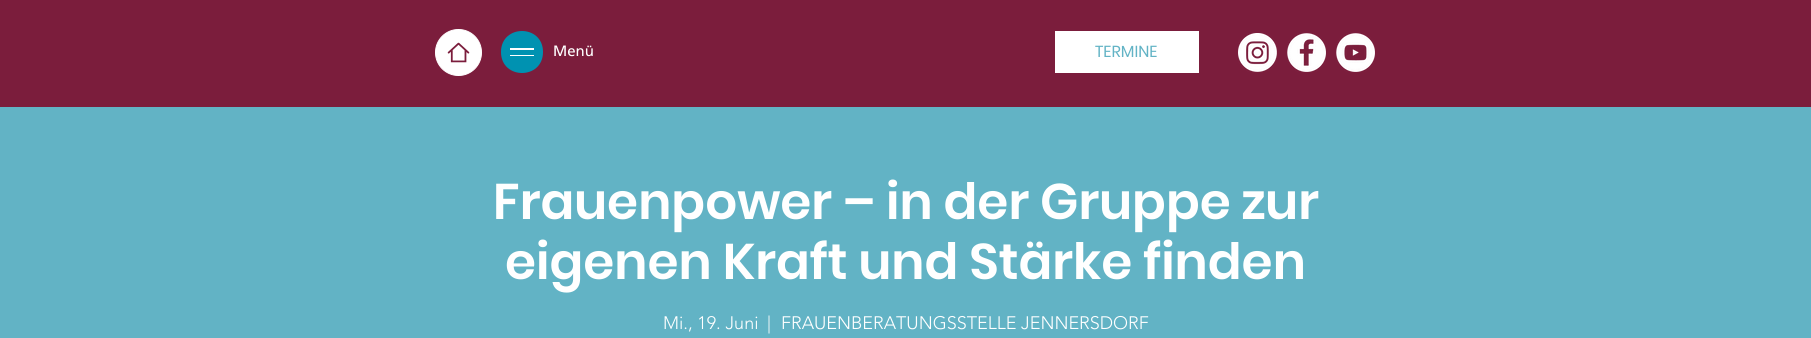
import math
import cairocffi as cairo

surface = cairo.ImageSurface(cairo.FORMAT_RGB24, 1811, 338)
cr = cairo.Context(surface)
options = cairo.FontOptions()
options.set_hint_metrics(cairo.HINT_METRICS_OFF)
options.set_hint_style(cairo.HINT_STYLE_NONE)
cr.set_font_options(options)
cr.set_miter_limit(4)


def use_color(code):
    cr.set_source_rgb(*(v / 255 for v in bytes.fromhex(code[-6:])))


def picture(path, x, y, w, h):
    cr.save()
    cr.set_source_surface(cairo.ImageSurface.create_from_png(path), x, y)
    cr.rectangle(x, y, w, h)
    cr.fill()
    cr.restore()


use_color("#62b3c5")
cr.paint()
use_color("#7b1d3c")
cr.rectangle(0, 0, 1811, 107)
cr.fill()
use_color("#ffffff")
cr.arc(458.5, 52.5, 23, 0, 2 * math.pi)
cr.fill_preserve()
cr.set_line_width(1)
cr.stroke()
picture("img1.png", 447, 42, 23, 21)
use_color("#0092b1")
cr.new_path()
cr.move_to(543, 52)
cr.curve_to(543, 80, 501, 80, 501, 52)
cr.curve_to(501, 24, 543, 24, 543, 52)
cr.close_path()
cr.fill()
use_color("#ffffff")
cr.rectangle(510, 48, 24, 2)
cr.fill()
cr.rectangle(510, 55, 24, 1)
cr.fill()
cr.select_font_face("Frutiger")
cr.set_font_size(15)
cr.move_to(553, 56)
cr.show_text("Menü")
cr.rectangle(1055, 31, 144, 42)
cr.fill()
cr.select_font_face("Poppins")
cr.set_font_size(16)
use_color("#62b3c5")
cr.move_to(1095, 57)
cr.show_text("TERMINE")
picture("img2.png", 1238, 33, 39, 39)
picture("img3.png", 1287, 33, 39, 39)
picture("img4.png", 1336, 33, 39, 39)
cr.select_font_face("Poppins SemiBold")
cr.set_font_size(50)
use_color("#ffffff")
cr.move_to(493, 219)
cr.show_text("Frauenpower – in der Gruppe zur")
cr.move_to(505, 279)
cr.show_text("eigenen Kraft und Stärke finden")
cr.select_font_face("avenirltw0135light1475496 Light")
cr.set_font_size(18)
cr.move_to(663, 329)
cr.show_text("Mi., 19. Juni")
cr.move_to(767, 329)
cr.show_text("|")
cr.move_to(781, 329)
cr.show_text("FRAUENBERATUNGSSTELLE JENNERSDORF")
surface.write_to_png("result.png")
